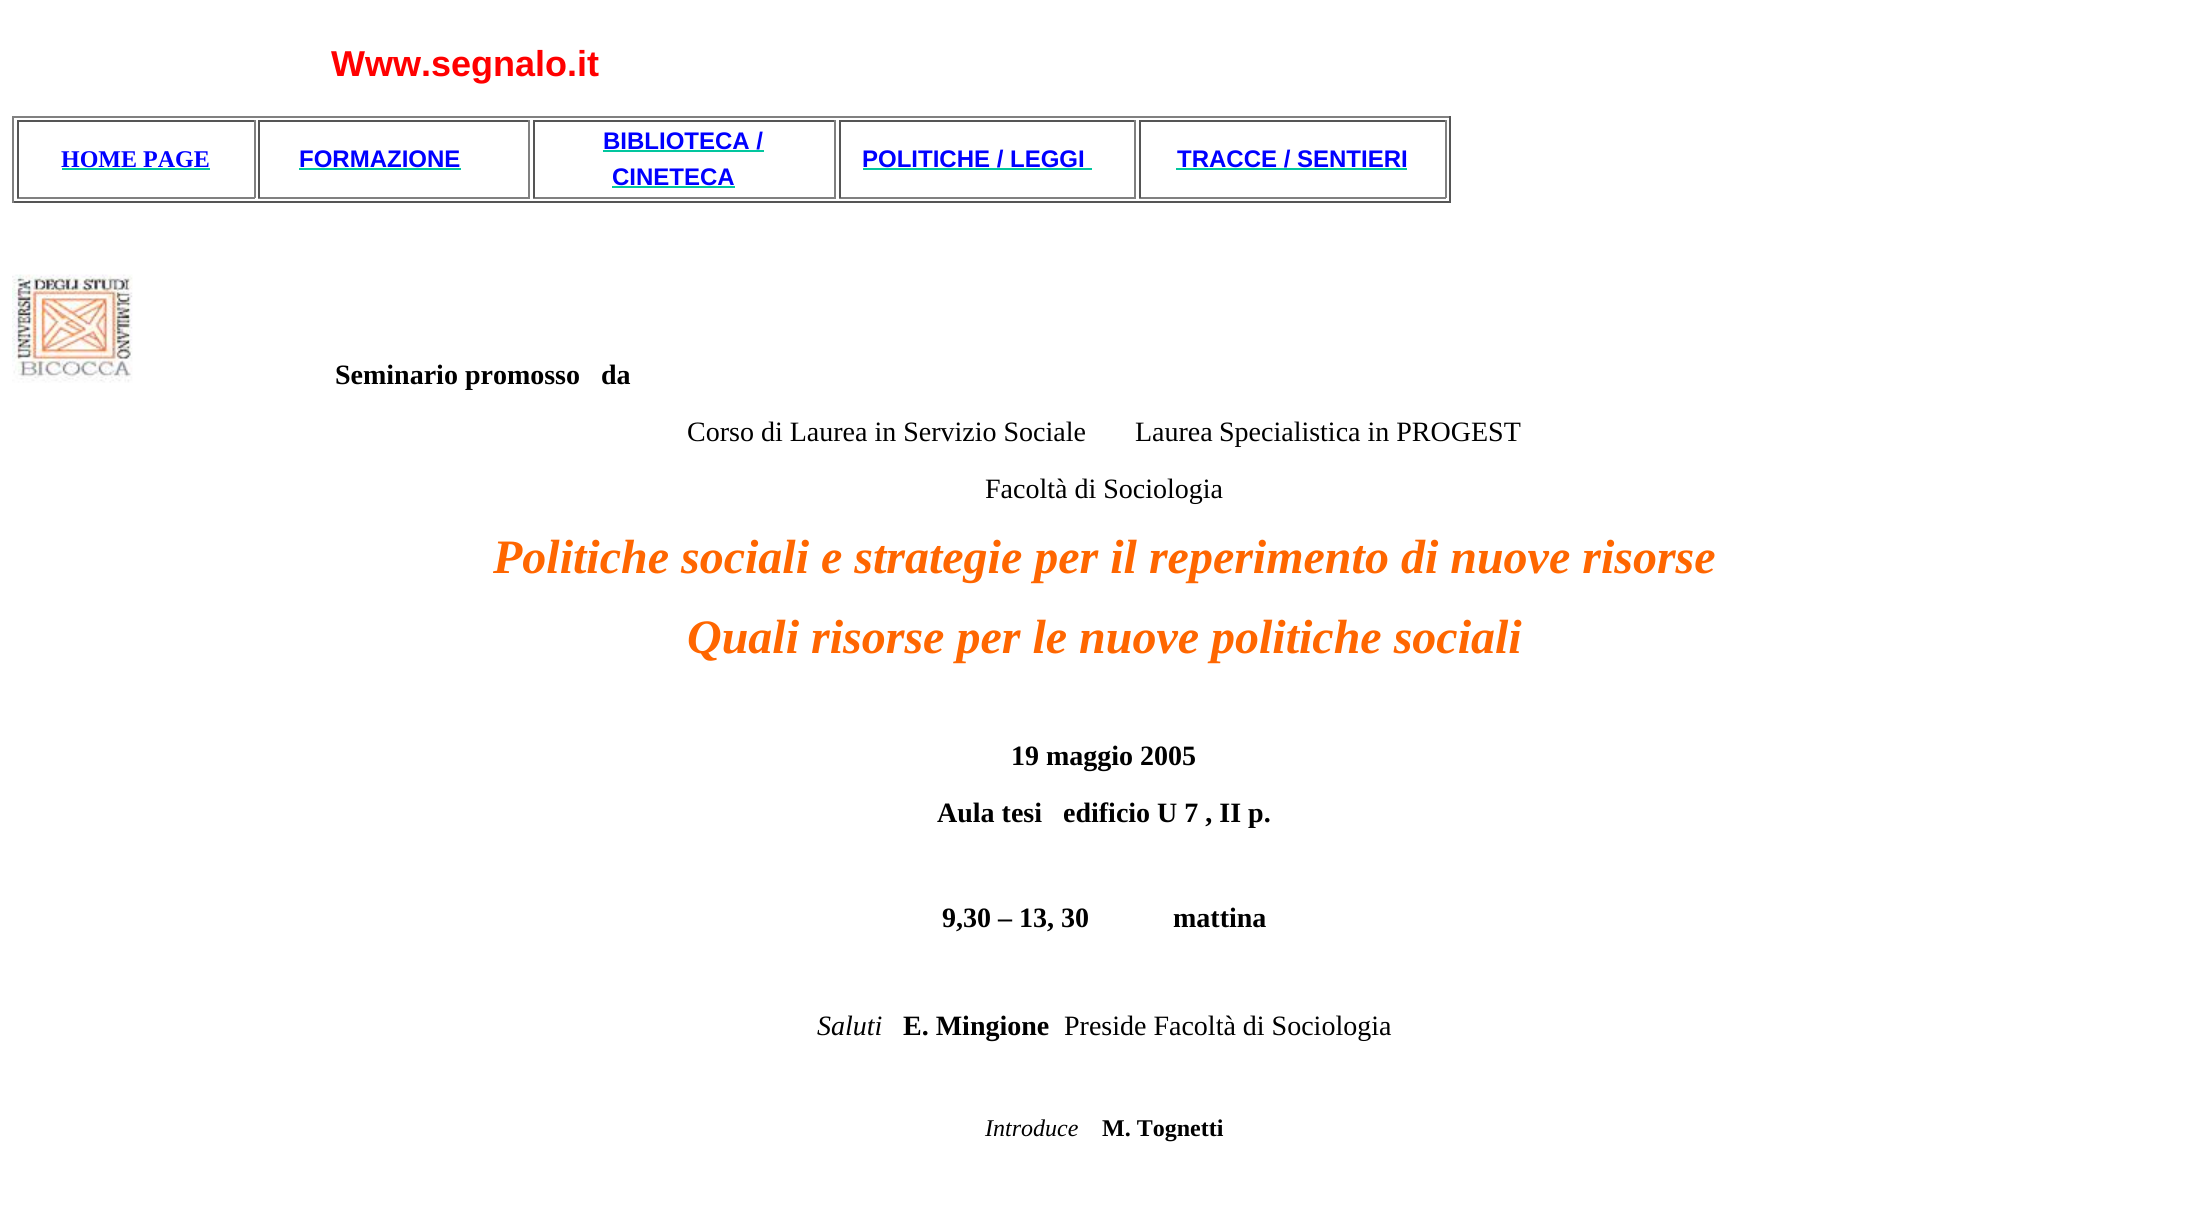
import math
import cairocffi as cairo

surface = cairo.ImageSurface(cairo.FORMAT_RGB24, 2208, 1216)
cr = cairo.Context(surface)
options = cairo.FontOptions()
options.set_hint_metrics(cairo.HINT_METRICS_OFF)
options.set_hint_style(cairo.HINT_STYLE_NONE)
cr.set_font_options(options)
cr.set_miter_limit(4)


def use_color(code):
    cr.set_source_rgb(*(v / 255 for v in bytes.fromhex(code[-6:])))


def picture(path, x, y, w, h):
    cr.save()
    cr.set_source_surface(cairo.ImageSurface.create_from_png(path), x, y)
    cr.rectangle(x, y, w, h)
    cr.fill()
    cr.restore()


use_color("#ffffff")
cr.paint()
cr.select_font_face("Liberation Sans", cairo.FONT_SLANT_NORMAL, cairo.FONT_WEIGHT_BOLD)
cr.set_font_size(36)
use_color("#ff0000")
cr.move_to(331, 76)
cr.show_text("Www.segnalo.it")
use_color("#808080")
cr.rectangle(12, 116, 1439, 2)
cr.fill()
use_color("#555555")
cr.rectangle(1449, 116, 2, 87)
cr.fill()
cr.rectangle(12, 201, 1439, 2)
cr.fill()
use_color("#808080")
cr.rectangle(12, 116, 2, 87)
cr.fill()
use_color("#555555")
cr.rectangle(17, 120, 238, 2)
cr.fill()
use_color("#808080")
cr.rectangle(254, 120, 2, 78)
cr.fill()
cr.rectangle(17, 197, 238, 2)
cr.fill()
use_color("#555555")
cr.rectangle(17, 120, 2, 78)
cr.fill()
cr.select_font_face("Liberation Serif", cairo.FONT_SLANT_NORMAL, cairo.FONT_WEIGHT_BOLD)
cr.set_font_size(24)
use_color("#0000ff")
cr.move_to(61, 167)
cr.show_text("HOME PAGE")
use_color("#02c69e")
cr.rectangle(62, 168, 148, 2)
cr.fill()
use_color("#555555")
cr.rectangle(258, 120, 272, 2)
cr.fill()
use_color("#808080")
cr.rectangle(528, 120, 2, 78)
cr.fill()
cr.rectangle(258, 197, 272, 2)
cr.fill()
use_color("#555555")
cr.rectangle(258, 120, 2, 78)
cr.fill()
cr.select_font_face("Liberation Sans", cairo.FONT_SLANT_NORMAL, cairo.FONT_WEIGHT_BOLD)
use_color("#0000ff")
cr.move_to(299, 167)
cr.show_text("FORMAZIONE")
use_color("#02c69e")
cr.rectangle(299, 168, 162, 2)
cr.fill()
use_color("#555555")
cr.rectangle(533, 120, 303, 2)
cr.fill()
use_color("#808080")
cr.rectangle(834, 120, 2, 78)
cr.fill()
cr.rectangle(533, 197, 303, 2)
cr.fill()
use_color("#555555")
cr.rectangle(533, 120, 2, 78)
cr.fill()
use_color("#0000ff")
cr.move_to(603, 149)
cr.show_text("BIBLIOTECA /")
use_color("#02c69e")
cr.rectangle(603, 150, 161, 2)
cr.fill()
use_color("#0000ff")
cr.move_to(612, 185)
cr.show_text("CINETECA")
use_color("#02c69e")
cr.rectangle(612, 186, 123, 2)
cr.fill()
use_color("#555555")
cr.rectangle(839, 120, 297, 2)
cr.fill()
use_color("#808080")
cr.rectangle(1134, 120, 2, 78)
cr.fill()
cr.rectangle(839, 197, 297, 2)
cr.fill()
use_color("#555555")
cr.rectangle(839, 120, 2, 78)
cr.fill()
use_color("#0000ff")
cr.move_to(862, 167)
cr.show_text("POLITICHE / LEGGI")
use_color("#02c69e")
cr.rectangle(863, 168, 229, 2)
cr.fill()
use_color("#555555")
cr.rectangle(1139, 120, 307, 2)
cr.fill()
use_color("#808080")
cr.rectangle(1445, 120, 2, 78)
cr.fill()
cr.rectangle(1139, 197, 307, 2)
cr.fill()
use_color("#555555")
cr.rectangle(1139, 120, 2, 78)
cr.fill()
use_color("#0000ff")
cr.move_to(1177, 167)
cr.show_text("TRACCE / SENTIERI")
use_color("#02c69e")
cr.rectangle(1176, 168, 231, 2)
cr.fill()
picture("img1.png", 12, 274, 121, 109)
cr.select_font_face("Liberation Serif", cairo.FONT_SLANT_NORMAL, cairo.FONT_WEIGHT_BOLD)
cr.set_font_size(28)
use_color("#000000")
cr.move_to(335, 384)
cr.show_text("Seminario promosso   da")
cr.select_font_face("Liberation Serif")
cr.move_to(687, 441)
cr.show_text("Corso di Laurea in Servizio Sociale       Laurea")
cr.move_to(1219, 441)
cr.show_text("Specialistica in PROGEST")
cr.move_to(985, 498)
cr.show_text("Facoltà di Sociologia")
cr.select_font_face("Liberation Serif", cairo.FONT_SLANT_ITALIC, cairo.FONT_WEIGHT_BOLD)
cr.set_font_size(48)
use_color("#ff6600")
cr.move_to(493, 573)
cr.show_text("Politiche sociali e strategie per il reperimento di nuove risorse")
cr.move_to(687, 653)
cr.show_text("Quali risorse per le nuove politiche sociali")
cr.select_font_face("Liberation Serif", cairo.FONT_SLANT_NORMAL, cairo.FONT_WEIGHT_BOLD)
cr.set_font_size(28)
use_color("#000000")
cr.move_to(1011, 765)
cr.show_text("19 maggio 2005")
cr.move_to(937, 822)
cr.show_text("Aula tesi   edificio U 7 , II p.")
cr.move_to(942, 927)
cr.show_text("9,30 – 13, 30            mattina")
cr.select_font_face("Liberation Serif", cairo.FONT_SLANT_ITALIC)
cr.move_to(817, 1035)
cr.show_text("Saluti")
cr.select_font_face("Liberation Serif", cairo.FONT_SLANT_NORMAL, cairo.FONT_WEIGHT_BOLD)
cr.move_to(903, 1035)
cr.show_text("E. Mingione")
cr.select_font_face("Liberation Serif")
cr.move_to(1064, 1035)
cr.show_text("Preside Facoltà di Sociologia")
cr.select_font_face("Liberation Serif", cairo.FONT_SLANT_ITALIC)
cr.set_font_size(24)
cr.move_to(985, 1136)
cr.show_text("Introduce")
cr.select_font_face("Liberation Serif", cairo.FONT_SLANT_NORMAL, cairo.FONT_WEIGHT_BOLD)
cr.move_to(1102, 1136)
cr.show_text("M. Tognetti")
surface.write_to_png("result.png")
